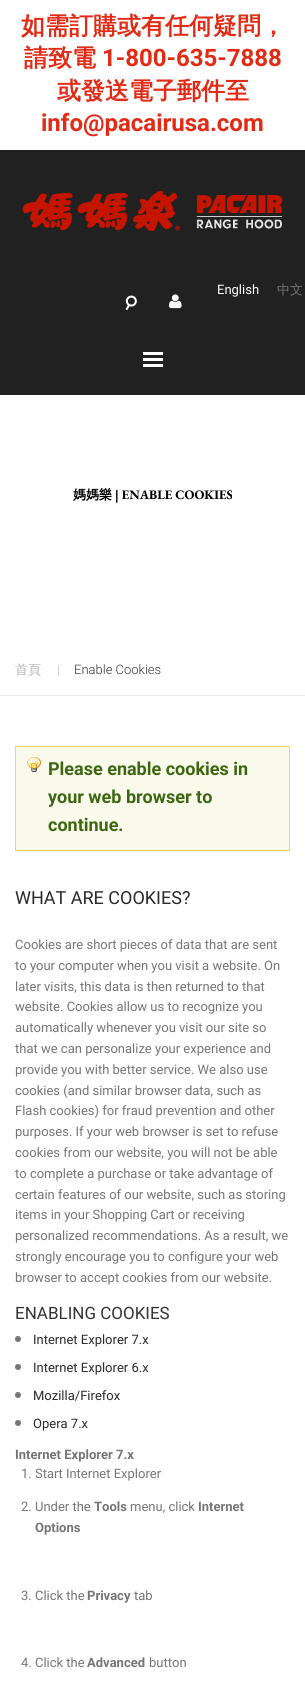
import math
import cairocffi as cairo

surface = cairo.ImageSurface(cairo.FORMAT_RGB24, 305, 1688)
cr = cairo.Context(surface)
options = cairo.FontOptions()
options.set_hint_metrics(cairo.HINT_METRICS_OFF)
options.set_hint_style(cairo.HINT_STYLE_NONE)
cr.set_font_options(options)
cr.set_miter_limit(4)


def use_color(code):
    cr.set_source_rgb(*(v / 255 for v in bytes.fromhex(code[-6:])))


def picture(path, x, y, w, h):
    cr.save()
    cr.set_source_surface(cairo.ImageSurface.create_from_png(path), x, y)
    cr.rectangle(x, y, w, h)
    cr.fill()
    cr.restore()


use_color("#ffffff")
cr.paint()
cr.select_font_face("WenQuanYi Zen Hei", cairo.FONT_SLANT_NORMAL, cairo.FONT_WEIGHT_BOLD)
cr.set_font_size(24)
use_color("#e22a14")
cr.move_to(21, 34)
cr.show_text("如需訂購或有任何疑問，")
cr.move_to(24, 66)
cr.show_text("請致電")
cr.select_font_face("Roboto", cairo.FONT_SLANT_NORMAL, cairo.FONT_WEIGHT_BOLD)
cr.move_to(102, 66)
cr.show_text("1-800-635-7888")
cr.select_font_face("WenQuanYi Zen Hei", cairo.FONT_SLANT_NORMAL, cairo.FONT_WEIGHT_BOLD)
cr.move_to(57, 99)
cr.show_text("或發送電子郵件至")
cr.select_font_face("Roboto", cairo.FONT_SLANT_NORMAL, cairo.FONT_WEIGHT_BOLD)
cr.move_to(41, 131)
cr.show_text("info@pacairusa.com")
use_color("#212121")
cr.rectangle(0, 150, 305, 245)
cr.fill()
picture("img1.png", 22, 191, 261, 40)
cr.select_font_face("Roboto")
cr.set_font_size(13)
use_color("#ffffff")
cr.move_to(217, 294)
cr.show_text("English")
cr.select_font_face("WenQuanYi Zen Hei Medium")
use_color("#757575")
cr.move_to(277, 294)
cr.show_text("中文")
picture("img2.png", 125, 295, 12, 15)
picture("img3.png", 169, 294, 13, 15)
use_color("#ffffff")
cr.rectangle(143, 352, 20, 3)
cr.fill()
cr.rectangle(143, 358, 20, 3)
cr.fill()
cr.rectangle(143, 364, 20, 3)
cr.fill()
cr.select_font_face("WenQuanYi Zen Hei", cairo.FONT_SLANT_NORMAL, cairo.FONT_WEIGHT_BOLD)
use_color("#000000")
cr.move_to(73, 499)
cr.show_text("媽媽樂")
cr.select_font_face("EB Garamond", cairo.FONT_SLANT_NORMAL, cairo.FONT_WEIGHT_BOLD)
cr.move_to(115, 499)
cr.show_text("| ENABLE COOKIES")
use_color("#ebebeb")
cr.rectangle(0, 695, 305, 1)
cr.fill()
cr.select_font_face("WenQuanYi Zen Hei Medium")
use_color("#b3b3b3")
cr.move_to(15, 674)
cr.show_text("首頁")
cr.select_font_face("Roboto")
use_color("#d0d0d0")
cr.move_to(57, 674)
cr.show_text("|")
cr.select_font_face("Roboto Light")
use_color("#343434")
cr.move_to(74, 674)
cr.show_text("Enable Cookies")
use_color("#fafaec")
cr.rectangle(16, 747, 273, 103)
cr.fill()
picture("img4.png", 27, 757, 14, 15)
cr.rectangle(15.5, 746.5, 274, 104)
use_color("#fcd344")
cr.set_line_width(1)
cr.stroke()
cr.select_font_face("Roboto", cairo.FONT_SLANT_NORMAL, cairo.FONT_WEIGHT_BOLD)
cr.set_font_size(18)
use_color("#3d6611")
cr.move_to(48, 775)
cr.show_text("Please enable cookies in")
cr.move_to(48, 803)
cr.show_text("your web browser to")
cr.move_to(48, 831)
cr.show_text("continue.")
cr.select_font_face("Roboto")
use_color("#2a2a2a")
cr.move_to(15, 904)
cr.show_text("WHAT ARE COOKIES?")
cr.set_font_size(13)
use_color("#757575")
cr.move_to(15, 949)
cr.show_text("Cookies are short pieces of data that are sent")
cr.move_to(15, 970)
cr.show_text("to your computer when you visit a website. On")
cr.move_to(15, 991)
cr.show_text("later visits, this data is then returned to that")
cr.move_to(15, 1011)
cr.show_text("website. Cookies allow us to recognize you")
cr.move_to(15, 1032)
cr.show_text("automatically whenever you visit our site so")
cr.move_to(15, 1053)
cr.show_text("that we can personalize your experience and")
cr.move_to(15, 1074)
cr.show_text("provide you with better service. We also use")
cr.move_to(15, 1095)
cr.show_text("cookies (and similar browser data, such as")
cr.move_to(15, 1115)
cr.show_text("Flash cookies) for fraud prevention and other")
cr.move_to(15, 1136)
cr.show_text("purposes. If your web browser is set to refuse")
cr.move_to(15, 1157)
cr.show_text("cookies from our website, you will not be able")
cr.move_to(15, 1178)
cr.show_text("to complete a purchase or take advantage of")
cr.move_to(15, 1199)
cr.show_text("certain features of our website, such as storing")
cr.move_to(15, 1219)
cr.show_text("items in your Shopping Cart or receiving")
cr.move_to(15, 1240)
cr.show_text("personalized recommendations. As a result, we")
cr.move_to(15, 1261)
cr.show_text("strongly encourage you to configure your web")
cr.move_to(15, 1282)
cr.show_text("browser to accept cookies from our website.")
cr.set_font_size(17)
use_color("#343434")
cr.move_to(15, 1319)
cr.show_text("ENABLING COOKIES")
use_color("#757575")
cr.new_path()
cr.arc(18, 1339, 3, 0, 2 * math.pi)
cr.fill()
cr.set_font_size(13)
use_color("#2a2a2a")
cr.move_to(33, 1344)
cr.show_text("Internet Explorer 7.x")
use_color("#757575")
cr.new_path()
cr.arc(18, 1367, 3, 0, 2 * math.pi)
cr.fill()
use_color("#2a2a2a")
cr.move_to(33, 1372)
cr.show_text("Internet Explorer 6.x")
use_color("#757575")
cr.new_path()
cr.arc(18, 1395, 3, 0, 2 * math.pi)
cr.fill()
use_color("#2a2a2a")
cr.move_to(33, 1400)
cr.show_text("Mozilla/Firefox")
use_color("#757575")
cr.new_path()
cr.arc(18, 1423, 3, 0, 2 * math.pi)
cr.fill()
use_color("#2a2a2a")
cr.move_to(33, 1428)
cr.show_text("Opera 7.x")
cr.select_font_face("Roboto", cairo.FONT_SLANT_NORMAL, cairo.FONT_WEIGHT_BOLD)
use_color("#757575")
cr.move_to(15, 1459)
cr.show_text("Internet Explorer 7.x")
cr.select_font_face("Roboto")
cr.move_to(21, 1478)
cr.show_text("1. Start Internet Explorer")
cr.move_to(21, 1511)
cr.show_text("2. Under the")
cr.select_font_face("Roboto", cairo.FONT_SLANT_NORMAL, cairo.FONT_WEIGHT_BOLD)
cr.move_to(94, 1511)
cr.show_text("Tools")
cr.select_font_face("Roboto")
cr.move_to(130, 1511)
cr.show_text("menu, click")
cr.select_font_face("Roboto", cairo.FONT_SLANT_NORMAL, cairo.FONT_WEIGHT_BOLD)
cr.move_to(198, 1511)
cr.show_text("Internet")
cr.move_to(35, 1532)
cr.show_text("Options")
cr.select_font_face("Roboto")
cr.move_to(21, 1600)
cr.show_text("3. Click the")
cr.select_font_face("Roboto", cairo.FONT_SLANT_NORMAL, cairo.FONT_WEIGHT_BOLD)
cr.move_to(87, 1600)
cr.show_text("Privacy")
cr.select_font_face("Roboto")
cr.move_to(134, 1600)
cr.show_text("tab")
cr.move_to(21, 1667)
cr.show_text("4. Click the")
cr.select_font_face("Roboto", cairo.FONT_SLANT_NORMAL, cairo.FONT_WEIGHT_BOLD)
cr.move_to(87, 1667)
cr.show_text("Advanced")
cr.select_font_face("Roboto")
cr.move_to(149, 1667)
cr.show_text("button")
surface.write_to_png("result.png")
